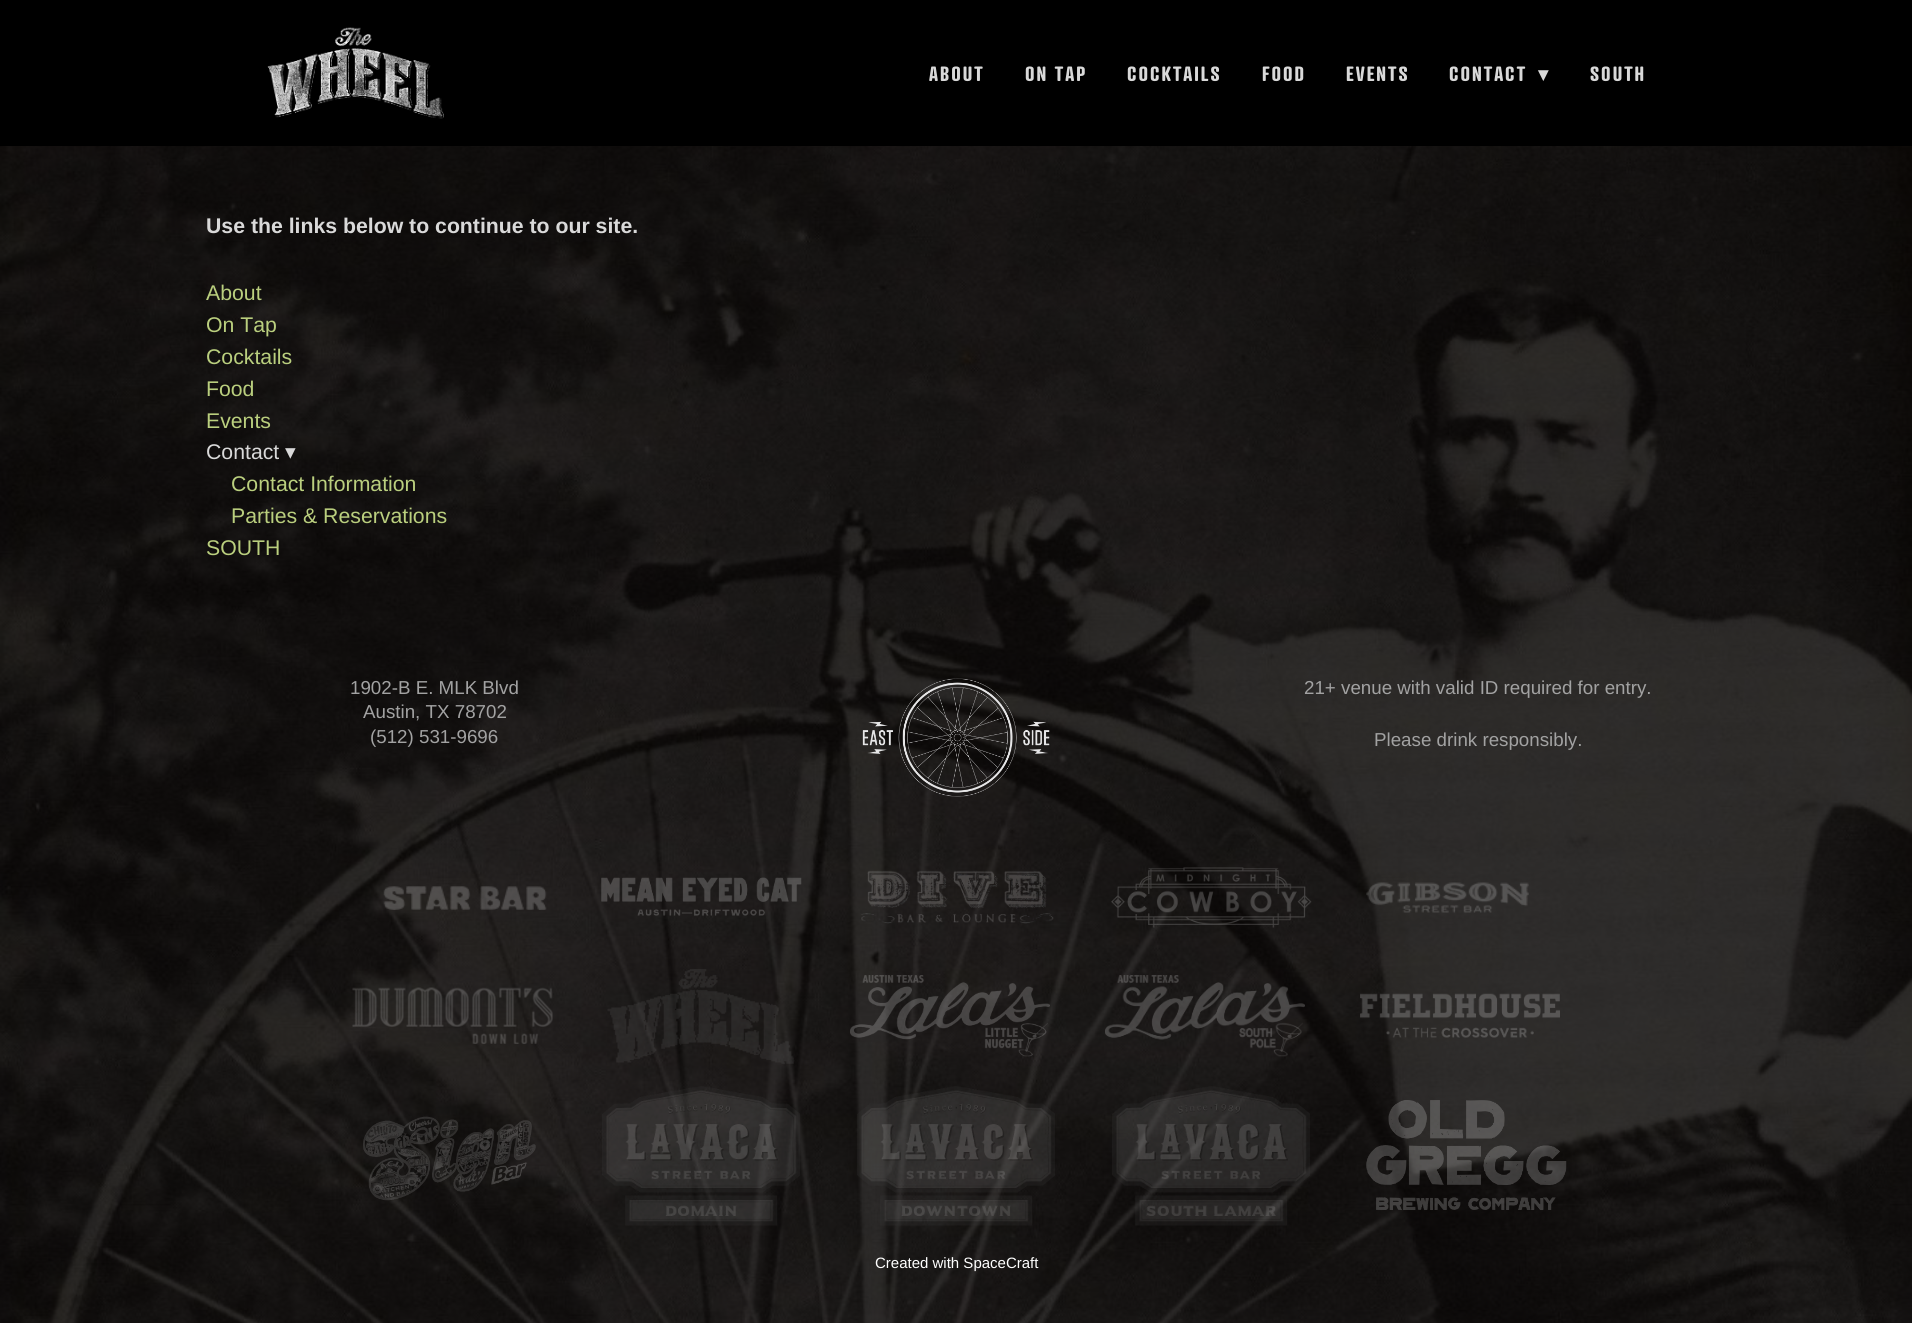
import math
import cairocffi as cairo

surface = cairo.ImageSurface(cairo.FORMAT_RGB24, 1912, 1323)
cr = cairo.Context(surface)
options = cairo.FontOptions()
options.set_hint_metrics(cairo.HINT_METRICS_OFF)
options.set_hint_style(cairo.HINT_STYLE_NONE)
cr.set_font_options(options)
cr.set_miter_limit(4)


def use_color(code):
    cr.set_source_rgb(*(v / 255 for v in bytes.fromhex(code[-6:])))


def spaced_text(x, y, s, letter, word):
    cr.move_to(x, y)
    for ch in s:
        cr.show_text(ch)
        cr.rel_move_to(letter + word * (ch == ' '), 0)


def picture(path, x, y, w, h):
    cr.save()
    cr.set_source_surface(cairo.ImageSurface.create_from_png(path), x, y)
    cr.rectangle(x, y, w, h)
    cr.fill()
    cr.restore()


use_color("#ffffff")
cr.paint()
picture("img1.png", 0, 146, 1912, 1177)
use_color("#000000")
cr.rectangle(0, 0, 1912, 146)
cr.fill()
picture("img2.png", 267, 27, 177, 92)
cr.select_font_face("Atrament", cairo.FONT_SLANT_NORMAL, cairo.FONT_WEIGHT_BOLD)
cr.set_font_size(20)
use_color("#d9d9d9")
spaced_text(929, 81, "ABOUT", 2, 0)
spaced_text(1025, 81, "ON TAP", 2, 0)
spaced_text(1127, 81, "COCKTAILS", 2, 0)
spaced_text(1262, 81, "FOOD", 2, 0)
spaced_text(1346, 81, "EVENTS", 2, 0)
spaced_text(1449, 81, "CONTACT", 2, 0)
cr.select_font_face("DejaVu Sans", cairo.FONT_SLANT_NORMAL, cairo.FONT_WEIGHT_BOLD)
spaced_text(1538, 81, "▾", 2, 0)
cr.select_font_face("Atrament", cairo.FONT_SLANT_NORMAL, cairo.FONT_WEIGHT_BOLD)
spaced_text(1590, 81, "SOUTH", 2, 0)
cr.select_font_face("Liberation Sans", cairo.FONT_SLANT_NORMAL, cairo.FONT_WEIGHT_BOLD)
cr.set_font_size(21.25)
cr.move_to(206, 233)
cr.show_text("Use the links below to continue to our site.")
cr.select_font_face("Liberation Sans")
use_color("#bacf7e")
cr.move_to(206, 300)
cr.show_text("About")
cr.move_to(206, 332)
cr.show_text("On Tap")
cr.move_to(206, 364)
cr.show_text("Cocktails")
cr.move_to(206, 396)
cr.show_text("Food")
cr.move_to(206, 428)
cr.show_text("Events")
use_color("#d9d9d9")
cr.move_to(206, 459)
cr.show_text("Contact")
cr.select_font_face("DejaVu Sans")
cr.move_to(285, 459)
cr.show_text("▾")
cr.select_font_face("Liberation Sans")
use_color("#bacf7e")
cr.move_to(231, 491)
cr.show_text("Contact Information")
cr.move_to(231, 523)
cr.show_text("Parties & Reservations")
cr.move_to(206, 555)
cr.show_text("SOUTH")
cr.set_font_size(18.75)
use_color("#a2a2a2")
cr.move_to(350, 694)
cr.show_text("1902-B E. MLK Blvd")
cr.move_to(363, 718)
cr.show_text("Austin, TX 78702")
cr.move_to(370, 743)
cr.show_text("(512) 531-9696")
picture("img3.png", 862, 678, 188, 119)
cr.move_to(1304, 694)
cr.show_text("21+ venue with valid ID required for entry.")
cr.move_to(1374, 746)
cr.show_text("Please drink responsibly.")
picture("img4.png", 383, 886, 164, 24)
picture("img5.png", 601, 877, 201, 39)
picture("img6.png", 861, 870, 193, 54)
picture("img7.png", 1111, 867, 201, 61)
picture("img8.png", 1366, 882, 163, 31)
picture("img9.png", 352, 987, 201, 57)
picture("img10.png", 607, 969, 187, 95)
picture("img11.png", 850, 975, 200, 82)
picture("img12.png", 1105, 975, 200, 82)
picture("img13.png", 1360, 993, 200, 45)
picture("img14.png", 363, 1116, 173, 85)
picture("img15.png", 602, 1086, 198, 140)
picture("img16.png", 857, 1086, 198, 140)
picture("img17.png", 1112, 1086, 198, 140)
picture("img18.png", 1366, 1100, 201, 110)
cr.set_font_size(15)
use_color("#ffffff")
cr.move_to(875, 1268)
cr.show_text("Created with SpaceCraft")
surface.write_to_png("result.png")
